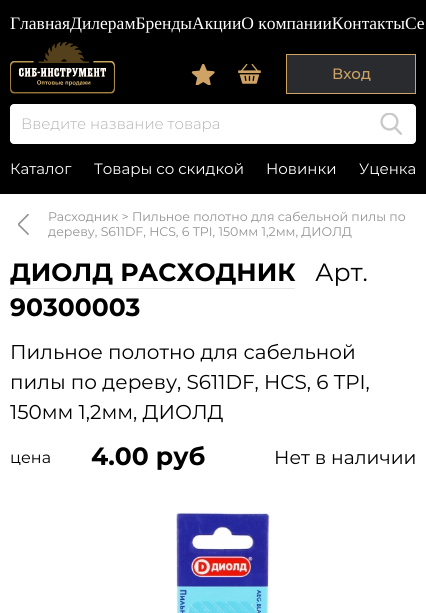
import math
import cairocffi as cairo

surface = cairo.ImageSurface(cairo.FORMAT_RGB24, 426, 613)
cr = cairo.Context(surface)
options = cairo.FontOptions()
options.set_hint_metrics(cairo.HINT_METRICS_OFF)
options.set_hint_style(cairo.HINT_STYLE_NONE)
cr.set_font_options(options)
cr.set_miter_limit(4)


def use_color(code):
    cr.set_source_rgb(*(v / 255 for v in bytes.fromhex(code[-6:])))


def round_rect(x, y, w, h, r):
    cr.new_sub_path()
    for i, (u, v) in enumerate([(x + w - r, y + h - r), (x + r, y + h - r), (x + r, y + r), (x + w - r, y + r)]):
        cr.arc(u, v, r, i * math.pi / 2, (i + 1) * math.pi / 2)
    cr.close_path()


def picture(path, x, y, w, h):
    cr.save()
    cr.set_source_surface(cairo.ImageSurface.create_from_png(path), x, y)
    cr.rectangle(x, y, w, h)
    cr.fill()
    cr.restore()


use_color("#ffffff")
cr.paint()
use_color("#000000")
cr.rectangle(0, 0, 426, 194)
cr.fill()
cr.select_font_face("Liberation Serif")
cr.set_font_size(17.5)
use_color("#ffffff")
cr.move_to(10, 29)
cr.show_text("ГлавнаяДилерамБрендыАкцииО компанииКонтактыСе")
picture("img1.png", 10, 41, 105, 53)
picture("img2.png", 191, 64, 24, 21)
picture("img3.png", 238, 64, 23, 20)
use_color("#292b2f")
cr.rectangle(286.5, 54.5, 129, 39)
cr.fill_preserve()
use_color("#cea365")
cr.set_line_width(1)
cr.stroke()
cr.select_font_face("Montserrat Medium")
cr.set_font_size(15)
cr.move_to(332, 79)
cr.show_text("Вход")
use_color("#ffffff")
round_rect(10.5, 104.5, 405, 39, 3.5)
cr.fill_preserve()
cr.stroke()
cr.select_font_face("Montserrat Light")
use_color("#b2b2b2")
cr.move_to(21, 129)
cr.show_text("Введите название товара")
picture("img4.png", 380, 113, 22, 22)
cr.select_font_face("Montserrat")
use_color("#ffffff")
cr.move_to(10, 174)
cr.show_text("Каталог")
cr.move_to(94, 174)
cr.show_text("Товары со скидкой")
cr.move_to(266, 174)
cr.show_text("Новинки")
cr.move_to(359, 174)
cr.show_text("Уценка")
picture("img5.png", 18, 214, 11, 21)
cr.set_font_size(12.5)
use_color("#939393")
cr.move_to(48, 221)
cr.show_text("Расходник > Пильное полотно для сабельной пилы по")
cr.move_to(48, 236)
cr.show_text("дереву, S611DF, HCS, 6 TPI, 150мм 1,2мм, ДИОЛД")
cr.select_font_face("Montserrat", cairo.FONT_SLANT_NORMAL, cairo.FONT_WEIGHT_BOLD)
cr.set_font_size(25)
use_color("#000000")
cr.move_to(10, 281)
cr.show_text("ДИОЛД РАСХОДНИК")
use_color("#e5e5e5")
cr.rectangle(10, 288, 285, 1)
cr.fill()
cr.select_font_face("Montserrat")
use_color("#000000")
cr.move_to(315, 281)
cr.show_text("Арт.")
cr.select_font_face("Montserrat", cairo.FONT_SLANT_NORMAL, cairo.FONT_WEIGHT_BOLD)
cr.move_to(10, 316)
cr.show_text("90300003")
cr.select_font_face("Montserrat")
cr.set_font_size(20)
cr.move_to(10, 359)
cr.show_text("Пильное полотно для сабельной")
cr.move_to(10, 389)
cr.show_text("пилы по дереву, S611DF, HCS, 6 TPI,")
cr.move_to(10, 419)
cr.show_text("150мм 1,2мм, ДИОЛД")
cr.set_font_size(16)
cr.move_to(10, 463)
cr.show_text("цена")
cr.select_font_face("Montserrat", cairo.FONT_SLANT_NORMAL, cairo.FONT_WEIGHT_BOLD)
cr.set_font_size(25)
cr.move_to(91, 465)
cr.show_text("4.00 руб")
cr.select_font_face("Montserrat")
cr.set_font_size(18.75)
cr.move_to(274, 464)
cr.show_text("Нет в наличии")
picture("img6.png", 176, 512, 94, 101)
surface.write_to_png("result.png")
